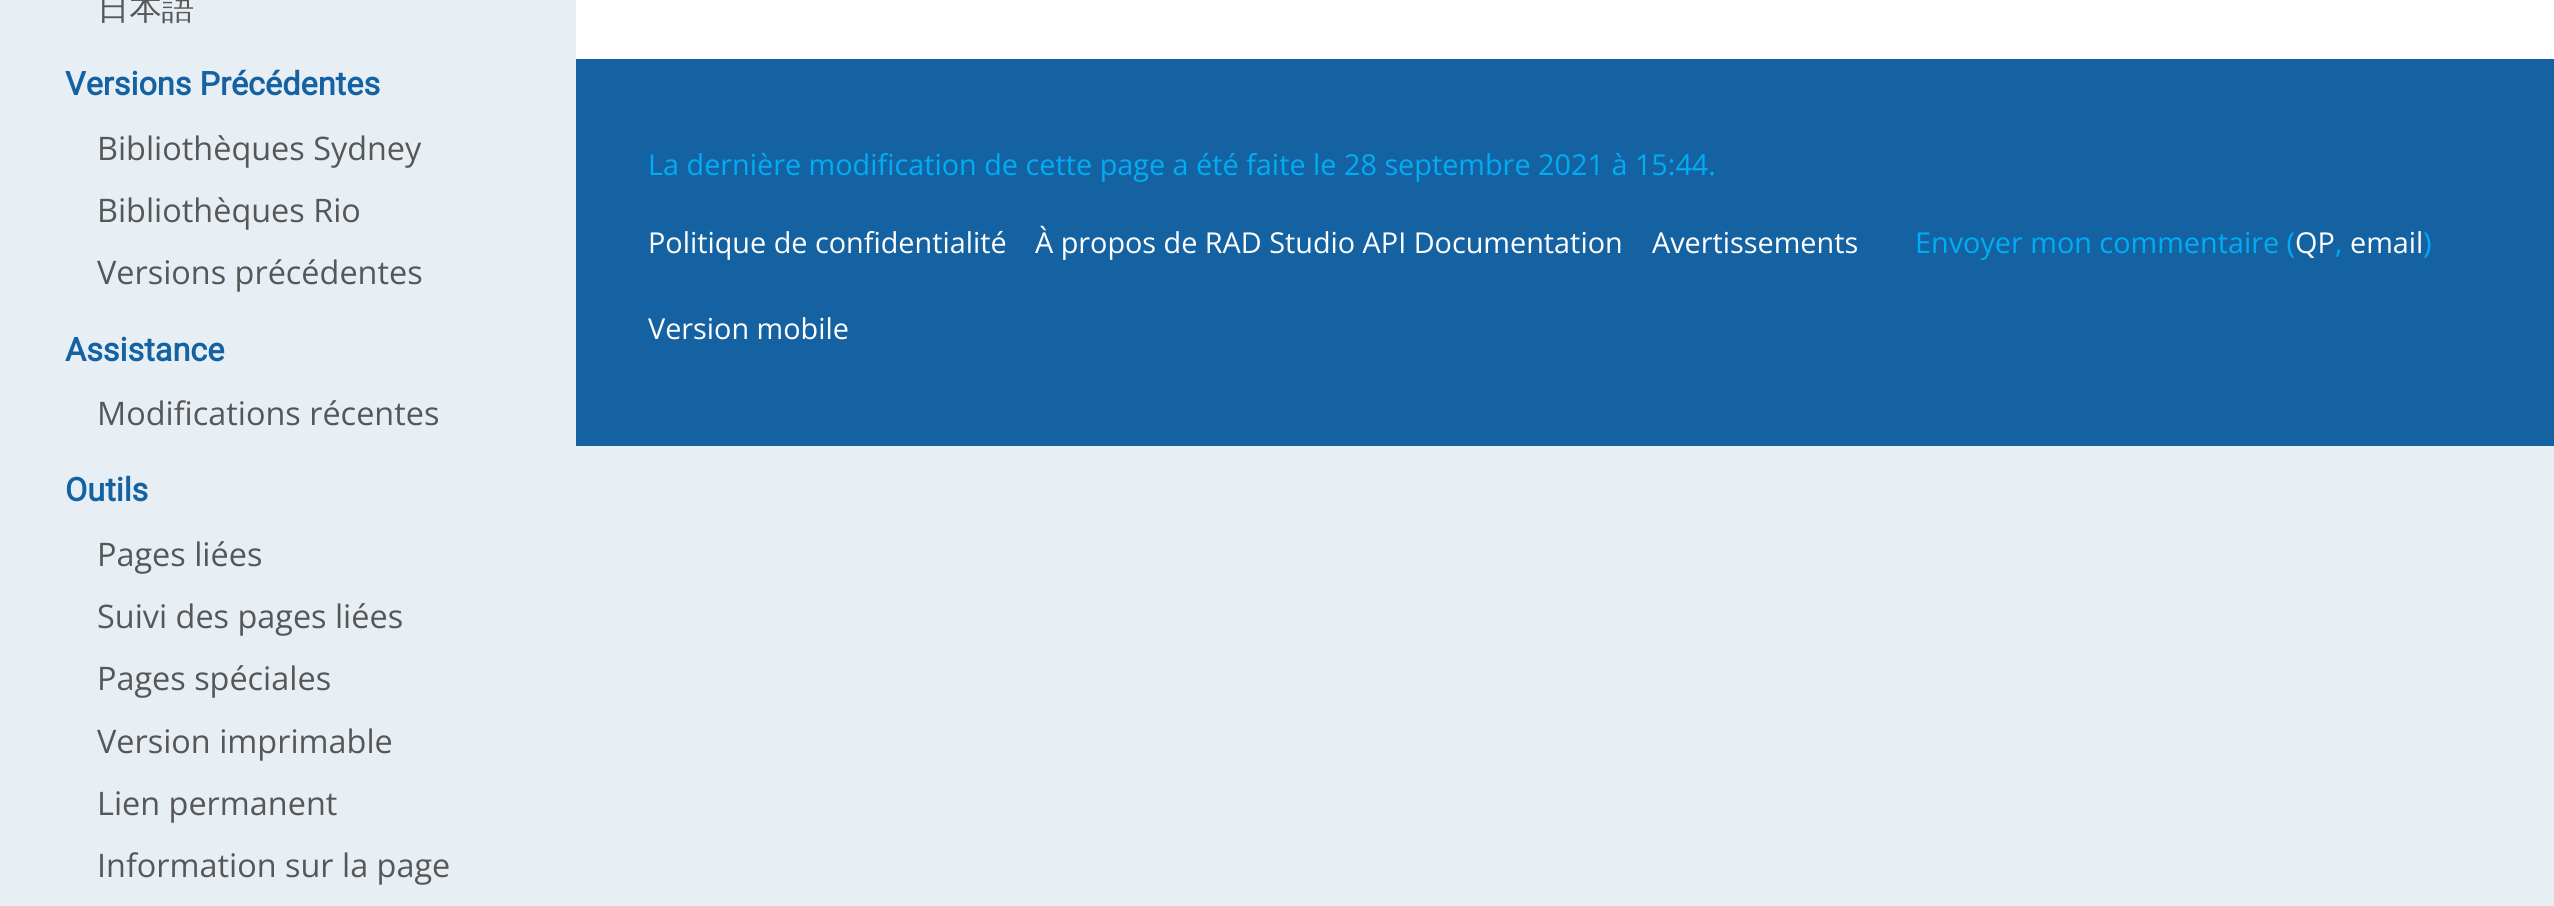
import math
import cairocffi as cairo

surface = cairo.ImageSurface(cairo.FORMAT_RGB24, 2554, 906)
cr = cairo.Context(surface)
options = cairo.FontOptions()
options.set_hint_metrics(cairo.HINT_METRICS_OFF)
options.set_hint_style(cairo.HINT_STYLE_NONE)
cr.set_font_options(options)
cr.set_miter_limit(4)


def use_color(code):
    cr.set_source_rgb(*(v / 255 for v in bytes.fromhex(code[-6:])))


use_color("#e7eff5")
cr.paint()
cr.select_font_face("WenQuanYi Zen Hei Medium")
cr.set_font_size(32.4)
use_color("#575757")
cr.move_to(97, 19)
cr.show_text("日本語")
cr.select_font_face("Roboto", cairo.FONT_SLANT_NORMAL, cairo.FONT_WEIGHT_BOLD)
use_color("#1562a3")
cr.move_to(65, 95)
cr.show_text("Versions Précédentes")
cr.select_font_face("Open Sans")
use_color("#575757")
cr.move_to(97, 160)
cr.show_text("Bibliothèques Sydney")
cr.move_to(97, 222)
cr.show_text("Bibliothèques Rio")
cr.move_to(97, 284)
cr.show_text("Versions précédentes")
cr.select_font_face("Roboto", cairo.FONT_SLANT_NORMAL, cairo.FONT_WEIGHT_BOLD)
use_color("#1562a3")
cr.move_to(65, 361)
cr.show_text("Assistance")
cr.select_font_face("Open Sans")
use_color("#575757")
cr.move_to(97, 425)
cr.show_text("Modifications récentes")
cr.select_font_face("Roboto", cairo.FONT_SLANT_NORMAL, cairo.FONT_WEIGHT_BOLD)
use_color("#1562a3")
cr.move_to(65, 501)
cr.show_text("Outils")
cr.select_font_face("Open Sans")
use_color("#575757")
cr.move_to(97, 566)
cr.show_text("Pages liées")
cr.move_to(97, 628)
cr.show_text("Suivi des pages liées")
cr.move_to(97, 690)
cr.show_text("Pages spéciales")
cr.move_to(97, 753)
cr.show_text("Version imprimable")
cr.move_to(97, 815)
cr.show_text("Lien permanent")
cr.move_to(97, 877)
cr.show_text("Information sur la page")
use_color("#ffffff")
cr.rectangle(576, 0, 1978, 59)
cr.fill()
use_color("#1562a3")
cr.rectangle(576, 59, 1978, 387)
cr.fill()
cr.set_font_size(28.8)
use_color("#00adf2")
cr.move_to(648, 175)
cr.show_text("La dernière modification de cette page a été faite le 28 septembre 2021 à 15:44.")
use_color("#ffffff")
cr.move_to(648, 253)
cr.show_text("Politique de confidentialité")
cr.move_to(1035, 253)
cr.show_text("À propos de RAD Studio API Documentation")
cr.move_to(1652, 253)
cr.show_text("Avertissements")
use_color("#00adf2")
cr.move_to(1915, 253)
cr.show_text("Envoyer mon commentaire (")
use_color("#ffffff")
cr.move_to(2295, 253)
cr.show_text("QP")
use_color("#00adf2")
cr.move_to(2335, 253)
cr.show_text(",")
use_color("#ffffff")
cr.move_to(2350, 253)
cr.show_text("email")
use_color("#00adf2")
cr.move_to(2423, 253)
cr.show_text(")")
use_color("#ffffff")
cr.move_to(648, 339)
cr.show_text("Version mobile")
surface.write_to_png("result.png")
